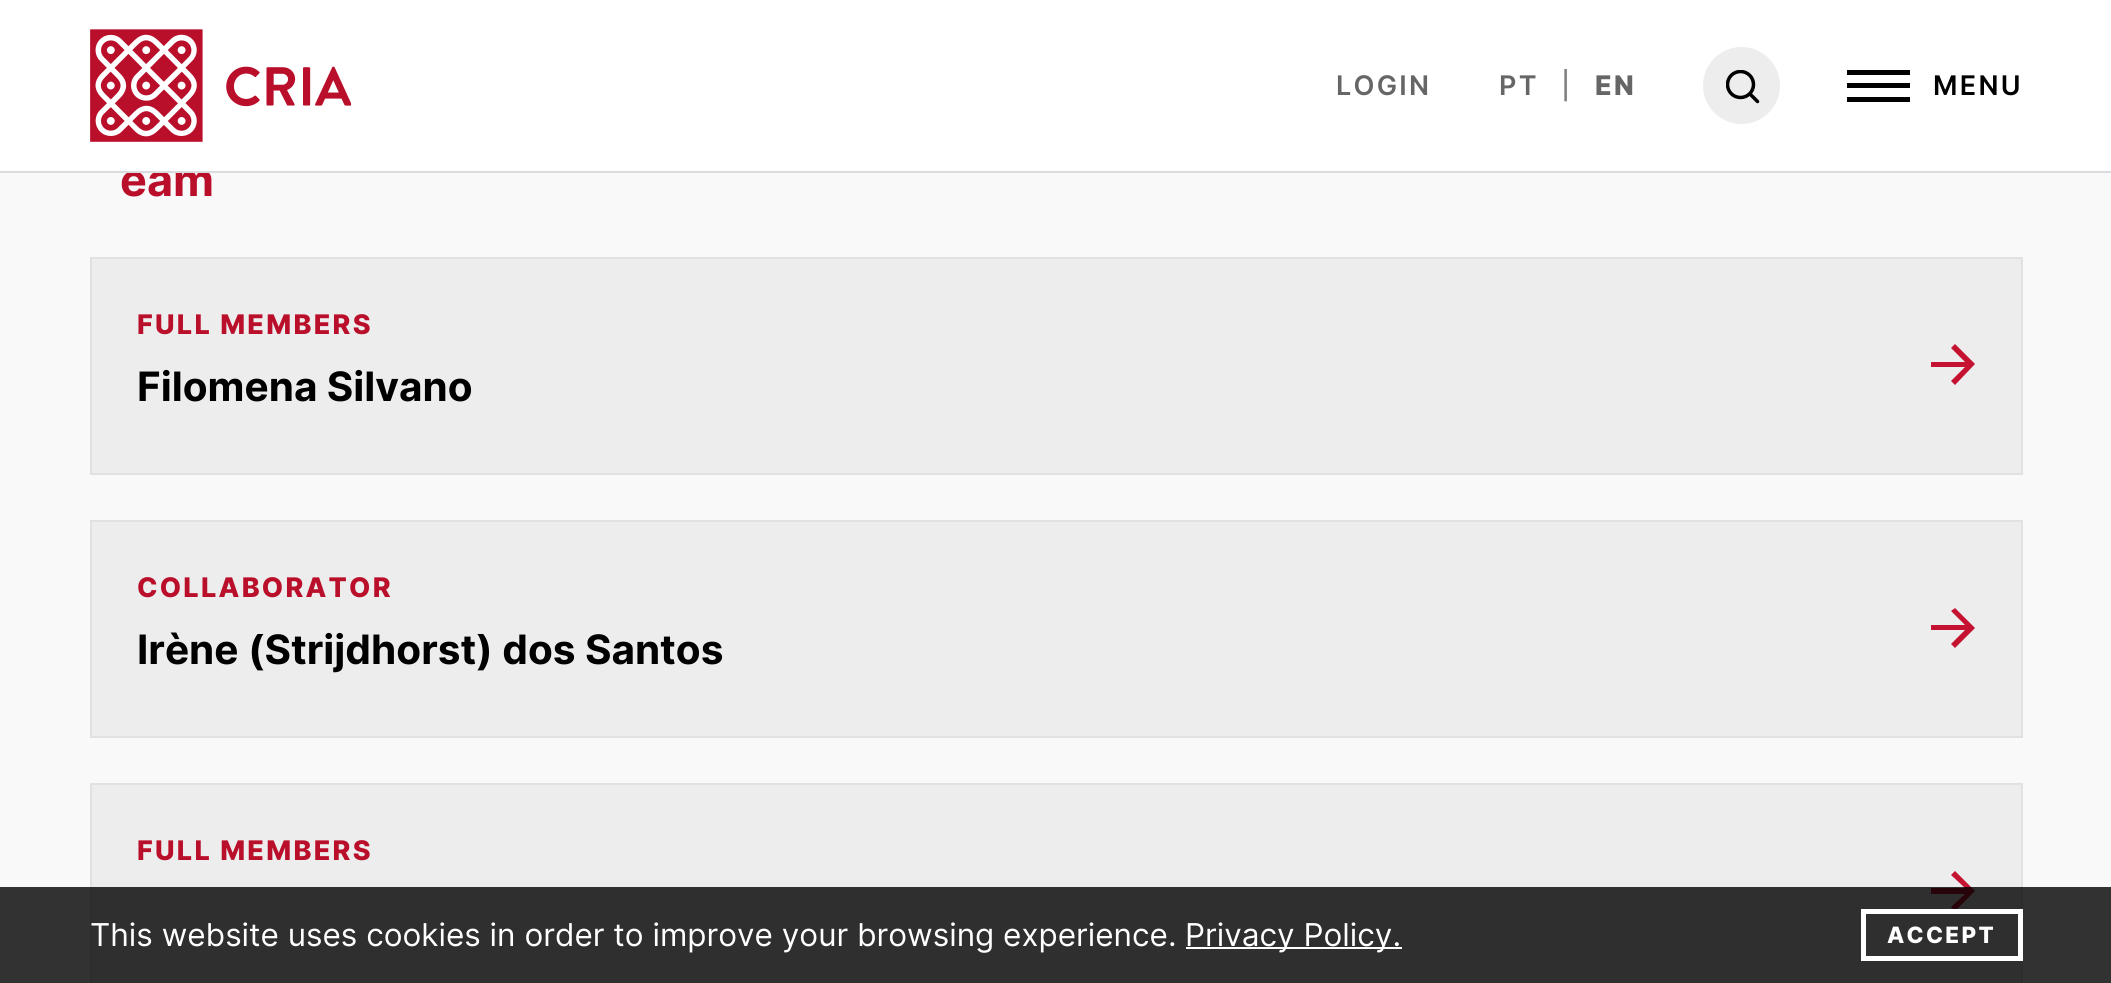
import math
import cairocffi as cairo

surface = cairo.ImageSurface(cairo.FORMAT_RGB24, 2111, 983)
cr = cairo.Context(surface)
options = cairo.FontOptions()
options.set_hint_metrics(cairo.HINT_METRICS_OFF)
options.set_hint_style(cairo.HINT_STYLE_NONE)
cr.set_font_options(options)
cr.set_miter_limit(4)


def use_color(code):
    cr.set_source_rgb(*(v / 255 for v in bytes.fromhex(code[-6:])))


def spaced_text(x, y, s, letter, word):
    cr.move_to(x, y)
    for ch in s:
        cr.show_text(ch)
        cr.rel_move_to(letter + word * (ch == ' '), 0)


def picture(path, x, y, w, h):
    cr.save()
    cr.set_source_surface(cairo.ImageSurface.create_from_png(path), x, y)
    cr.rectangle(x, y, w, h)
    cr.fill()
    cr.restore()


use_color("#f9f9fa")
cr.paint()
use_color("#ffffff")
cr.rectangle(0, 0, 2111, 171)
cr.fill()
cr.select_font_face("Inter", cairo.FONT_SLANT_NORMAL, cairo.FONT_WEIGHT_BOLD)
cr.set_font_size(45)
use_color("#ba0f2b")
cr.move_to(120, 196)
cr.show_text("eam")
use_color("#d9dbdd")
cr.rectangle(0, 171, 2111, 2)
cr.fill()
picture("img1.png", 90, 29, 261, 113)
cr.select_font_face("Inter SemiBold")
cr.set_font_size(27)
use_color("#666666")
spaced_text(1336, 95, "LOGIN", 2.25, 0)
spaced_text(1499, 95, "PT", 2.25, 0)
cr.select_font_face("Inter Medium")
use_color("#808080")
spaced_text(1561, 95, "|", 2.25, 0)
cr.select_font_face("Inter ExtraBold")
use_color("#666666")
spaced_text(1595, 95, "EN", 2.25, 0)
use_color("#ededee")
cr.new_path()
cr.arc(1741.5, 85.5, 38.5, 0, 2 * math.pi)
cr.fill()
cr.new_path()
cr.move_to(1750.5, 94.5)
cr.line_to(1757.5, 101.5)
use_color("#000000")
cr.set_line_width(3.5)
cr.set_line_cap(cairo.LINE_CAP_ROUND)
cr.stroke()
cr.save()
cr.rectangle(1726, 70, 34, 34)
cr.clip()
cr.arc(1740.5, 84.5, 13, 0, 2 * math.pi)
cr.set_line_cap(cairo.LINE_CAP_BUTT)
cr.stroke()
cr.restore()
cr.rectangle(1847, 70, 63, 5)
cr.fill()
cr.rectangle(1847, 83, 63, 5)
cr.fill()
cr.rectangle(1847, 97, 63, 5)
cr.fill()
cr.select_font_face("Inter SemiBold")
spaced_text(1933, 95, "MENU", 2.25, 0)
use_color("#ededee")
cr.rectangle(91, 258, 1931, 216)
cr.fill_preserve()
use_color("#e1e1e2")
cr.set_line_width(2)
cr.set_line_cap(cairo.LINE_CAP_BUTT)
cr.stroke()
cr.select_font_face("Inter ExtraBold")
use_color("#ba0f2b")
spaced_text(137, 334, "FULL MEMBERS", 2.25, 0)
cr.select_font_face("Inter", cairo.FONT_SLANT_NORMAL, cairo.FONT_WEIGHT_BOLD)
cr.set_font_size(40.5)
use_color("#000000")
cr.move_to(137, 401)
cr.show_text("Filomena Silvano")
use_color("#c41230")
cr.new_path()
cr.move_to(1955, 385)
cr.line_to(1951, 381)
cr.line_to(1965, 367)
cr.line_to(1931, 367)
cr.line_to(1931, 362)
cr.line_to(1965, 362)
cr.line_to(1951, 348)
cr.line_to(1955, 344)
cr.line_to(1975, 364)
cr.close_path()
cr.fill()
use_color("#ededee")
cr.rectangle(91, 521, 1931, 216)
cr.fill_preserve()
use_color("#e1e1e2")
cr.stroke()
cr.select_font_face("Inter ExtraBold")
cr.set_font_size(27)
use_color("#ba0f2b")
spaced_text(137, 597, "COLLABORATOR", 2.25, 0)
use_color("#c41230")
cr.new_path()
cr.move_to(1955, 648)
cr.line_to(1951, 644)
cr.line_to(1965, 630)
cr.line_to(1931, 630)
cr.line_to(1931, 625)
cr.line_to(1965, 625)
cr.line_to(1951, 611)
cr.line_to(1955, 608)
cr.line_to(1975, 628)
cr.close_path()
cr.fill()
cr.select_font_face("Inter", cairo.FONT_SLANT_NORMAL, cairo.FONT_WEIGHT_BOLD)
cr.set_font_size(40.5)
use_color("#000000")
cr.move_to(137, 664)
cr.show_text("Irène (Strijdhorst) dos Santos")
use_color("#ededee")
cr.rectangle(91, 784, 1931, 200)
cr.fill_preserve()
use_color("#e1e1e2")
cr.stroke()
cr.select_font_face("Inter ExtraBold")
cr.set_font_size(27)
use_color("#ba0f2b")
spaced_text(137, 860, "FULL MEMBERS", 2.25, 0)
use_color("#c41230")
cr.new_path()
cr.move_to(1955, 911)
cr.line_to(1951, 907)
cr.line_to(1965, 894)
cr.line_to(1931, 894)
cr.line_to(1931, 888)
cr.line_to(1965, 888)
cr.line_to(1951, 875)
cr.line_to(1955, 871)
cr.line_to(1975, 891)
cr.close_path()
cr.fill()
cr.set_source_rgba(0, 0, 0, 0.8)
cr.rectangle(0, 887, 2111, 96)
cr.fill()
cr.select_font_face("Inter")
cr.set_font_size(31.5)
use_color("#ffffff")
cr.move_to(90, 946)
cr.show_text("This website uses cookies in order to improve your browsing experience.")
cr.rectangle(1186, 947, 216, 2)
cr.fill()
cr.move_to(1185, 946)
cr.show_text("Privacy Policy.")
cr.rectangle(1863.5, 911.5, 157, 47)
cr.set_line_width(5)
cr.stroke()
cr.select_font_face("Inter ExtraBold")
cr.set_font_size(22.5)
spaced_text(1887, 943, "ACCEPT", 2.25, 0)
surface.write_to_png("result.png")
